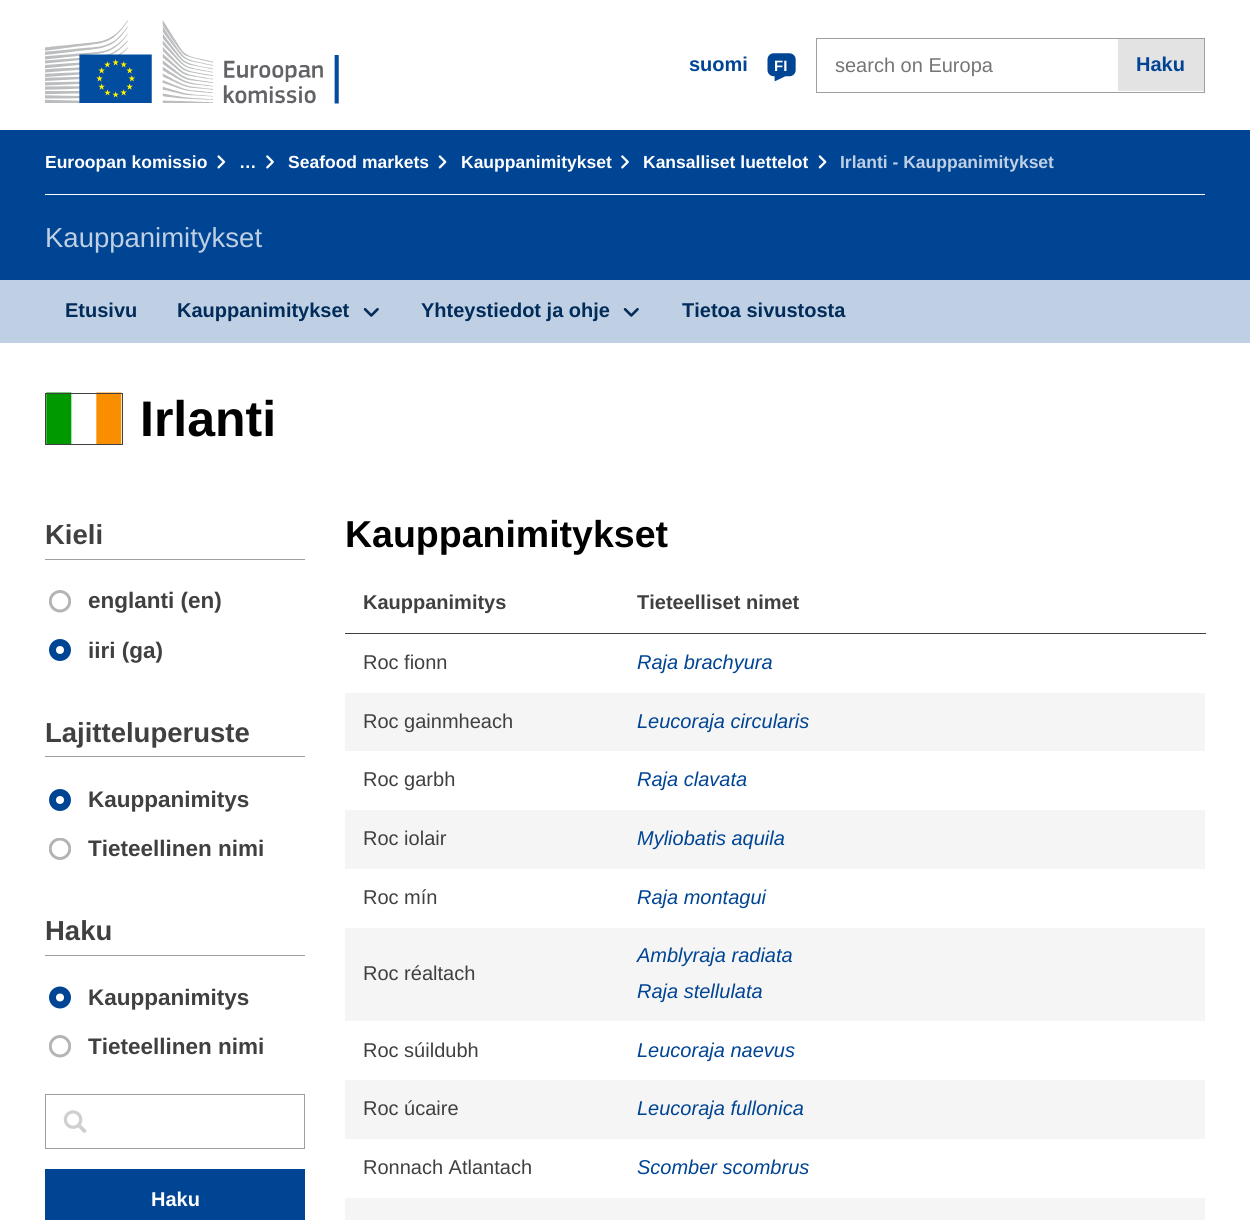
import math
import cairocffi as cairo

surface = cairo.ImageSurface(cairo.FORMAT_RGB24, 1250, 1220)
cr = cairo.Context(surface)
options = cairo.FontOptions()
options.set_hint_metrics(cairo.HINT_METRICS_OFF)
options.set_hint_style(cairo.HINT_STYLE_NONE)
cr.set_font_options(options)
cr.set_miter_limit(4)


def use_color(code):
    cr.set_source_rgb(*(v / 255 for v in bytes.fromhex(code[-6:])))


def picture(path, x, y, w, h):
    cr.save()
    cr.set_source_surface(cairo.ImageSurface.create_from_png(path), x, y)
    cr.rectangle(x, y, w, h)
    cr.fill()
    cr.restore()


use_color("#ffffff")
cr.paint()
picture("img1.png", 45, 20, 294, 84)
cr.select_font_face("Liberation Sans", cairo.FONT_SLANT_NORMAL, cairo.FONT_WEIGHT_BOLD)
cr.set_font_size(20)
use_color("#004494")
cr.move_to(689, 71)
cr.show_text("suomi")
picture("img2.png", 767, 53, 29, 29)
cr.set_font_size(15)
use_color("#ffffff")
cr.move_to(774, 71)
cr.show_text("FI")
cr.rectangle(816.5, 38.5, 388, 54)
use_color("#9f9f9f")
cr.set_line_width(1)
cr.stroke()
cr.select_font_face("Liberation Sans")
cr.set_font_size(20)
use_color("#757575")
cr.move_to(835, 72)
cr.show_text("search on Europa")
use_color("#e3e3e3")
cr.rectangle(1118, 39, 86, 52)
cr.fill()
cr.select_font_face("Liberation Sans", cairo.FONT_SLANT_NORMAL, cairo.FONT_WEIGHT_BOLD)
use_color("#004494")
cr.move_to(1136, 71)
cr.show_text("Haku")
cr.rectangle(0, 130, 1250, 150)
cr.fill()
use_color("#ffffff")
cr.rectangle(45, 194, 1160, 1)
cr.fill()
cr.set_font_size(17.5)
cr.move_to(45, 168)
cr.show_text("Euroopan komissio")
picture("img3.png", 217, 155, 9, 14)
cr.move_to(239, 168)
cr.show_text("…")
picture("img4.png", 266, 155, 8, 14)
cr.move_to(288, 168)
cr.show_text("Seafood markets")
picture("img5.png", 438, 155, 9, 14)
cr.move_to(461, 168)
cr.show_text("Kauppanimitykset")
picture("img4.png", 621, 155, 8, 14)
cr.move_to(643, 168)
cr.show_text("Kansalliset luettelot")
picture("img5.png", 818, 155, 9, 14)
use_color("#bfd0e4")
cr.move_to(840, 168)
cr.show_text("Irlanti - Kauppanimitykset")
cr.select_font_face("Liberation Sans")
cr.set_font_size(27.5)
cr.move_to(45, 247)
cr.show_text("Kauppanimitykset")
cr.rectangle(0, 280, 1250, 63)
cr.fill()
cr.select_font_face("Liberation Sans", cairo.FONT_SLANT_NORMAL, cairo.FONT_WEIGHT_BOLD)
cr.set_font_size(20)
use_color("#012b58")
cr.move_to(65, 317)
cr.show_text("Etusivu")
cr.move_to(177, 317)
cr.show_text("Kauppanimitykset")
picture("img6.png", 363, 308, 16, 9)
cr.move_to(421, 317)
cr.show_text("Yhteystiedot ja ohje")
picture("img6.png", 623, 308, 16, 9)
cr.move_to(682, 317)
cr.show_text("Tietoa sivustosta")
picture("img7.png", 46, 392, 76, 52)
cr.rectangle(45.5, 393.5, 77, 51)
use_color("#404040")
cr.stroke()
cr.set_font_size(50)
use_color("#000000")
cr.move_to(140, 436)
cr.show_text("Irlanti")
use_color("#9f9f9f")
cr.rectangle(45, 559, 260, 1)
cr.fill()
cr.set_font_size(27.5)
use_color("#404040")
cr.move_to(45, 544)
cr.show_text("Kieli")
picture("img8.png", 49, 590, 22, 23)
cr.set_font_size(22.5)
cr.move_to(88, 608)
cr.show_text("englanti (en)")
use_color("#004494")
cr.new_path()
cr.arc(60, 650, 11, 0, 2 * math.pi)
cr.fill()
use_color("#ffffff")
cr.arc(60, 650, 4, 0, 2 * math.pi)
cr.fill()
use_color("#404040")
cr.move_to(88, 658)
cr.show_text("iiri (ga)")
use_color("#9f9f9f")
cr.rectangle(45, 756, 260, 1)
cr.fill()
cr.set_font_size(27.5)
use_color("#404040")
cr.move_to(45, 742)
cr.show_text("Lajitteluperuste")
use_color("#004494")
cr.new_path()
cr.arc(60, 800, 11, 0, 2 * math.pi)
cr.fill()
use_color("#ffffff")
cr.arc(60, 800, 4, 0, 2 * math.pi)
cr.fill()
cr.set_font_size(22.5)
use_color("#404040")
cr.move_to(88, 807)
cr.show_text("Kauppanimitys")
picture("img9.png", 49, 838, 22, 22)
cr.move_to(88, 856)
cr.show_text("Tieteellinen nimi")
use_color("#9f9f9f")
cr.rectangle(45, 955, 260, 1)
cr.fill()
cr.set_font_size(27.5)
use_color("#404040")
cr.move_to(45, 940)
cr.show_text("Haku")
use_color("#004494")
cr.new_path()
cr.arc(60, 997.5, 11, 0, 2 * math.pi)
cr.fill()
use_color("#ffffff")
cr.arc(60, 997.5, 4, 0, 2 * math.pi)
cr.fill()
cr.set_font_size(22.5)
use_color("#404040")
cr.move_to(88, 1005)
cr.show_text("Kauppanimitys")
picture("img8.png", 49, 1035, 22, 23)
cr.move_to(88, 1054)
cr.show_text("Tieteellinen nimi")
cr.rectangle(45.5, 1094.5, 259, 54)
use_color("#9f9f9f")
cr.stroke()
picture("img10.png", 63, 1110, 24, 23)
use_color("#004494")
cr.rectangle(45, 1169, 260, 51)
cr.fill()
cr.set_font_size(20)
use_color("#ffffff")
cr.move_to(151, 1206)
cr.show_text("Haku")
cr.set_font_size(37.5)
use_color("#000000")
cr.move_to(345, 547)
cr.show_text("Kauppanimitykset")
cr.set_font_size(20)
use_color("#404040")
cr.move_to(363, 609)
cr.show_text("Kauppanimitys")
cr.rectangle(345, 633, 861, 1)
cr.fill()
cr.move_to(637, 609)
cr.show_text("Tieteelliset nimet")
cr.select_font_face("Liberation Sans")
cr.move_to(363, 669)
cr.show_text("Roc fionn")
cr.select_font_face("Liberation Sans", cairo.FONT_SLANT_ITALIC)
use_color("#004494")
cr.move_to(637, 669)
cr.show_text("Raja brachyura")
use_color("#f5f5f5")
cr.rectangle(345, 693, 860, 58)
cr.fill()
cr.select_font_face("Liberation Sans")
use_color("#404040")
cr.move_to(363, 728)
cr.show_text("Roc gainmheach")
cr.select_font_face("Liberation Sans", cairo.FONT_SLANT_ITALIC)
use_color("#004494")
cr.move_to(637, 728)
cr.show_text("Leucoraja circularis")
cr.select_font_face("Liberation Sans")
use_color("#404040")
cr.move_to(363, 786)
cr.show_text("Roc garbh")
cr.select_font_face("Liberation Sans", cairo.FONT_SLANT_ITALIC)
use_color("#004494")
cr.move_to(637, 786)
cr.show_text("Raja clavata")
use_color("#f5f5f5")
cr.rectangle(345, 810, 860, 59)
cr.fill()
cr.select_font_face("Liberation Sans")
use_color("#404040")
cr.move_to(363, 845)
cr.show_text("Roc iolair")
cr.select_font_face("Liberation Sans", cairo.FONT_SLANT_ITALIC)
use_color("#004494")
cr.move_to(637, 845)
cr.show_text("Myliobatis aquila")
cr.select_font_face("Liberation Sans")
use_color("#404040")
cr.move_to(363, 904)
cr.show_text("Roc mín")
cr.select_font_face("Liberation Sans", cairo.FONT_SLANT_ITALIC)
use_color("#004494")
cr.move_to(637, 904)
cr.show_text("Raja montagui")
use_color("#f5f5f5")
cr.rectangle(345, 928, 860, 93)
cr.fill()
cr.select_font_face("Liberation Sans")
use_color("#404040")
cr.move_to(363, 980)
cr.show_text("Roc réaltach")
cr.select_font_face("Liberation Sans", cairo.FONT_SLANT_ITALIC)
use_color("#004494")
cr.move_to(637, 962)
cr.show_text("Amblyraja radiata")
cr.move_to(637, 998)
cr.show_text("Raja stellulata")
cr.select_font_face("Liberation Sans")
use_color("#404040")
cr.move_to(363, 1057)
cr.show_text("Roc súildubh")
cr.select_font_face("Liberation Sans", cairo.FONT_SLANT_ITALIC)
use_color("#004494")
cr.move_to(637, 1057)
cr.show_text("Leucoraja naevus")
use_color("#f5f5f5")
cr.rectangle(345, 1080, 860, 59)
cr.fill()
cr.select_font_face("Liberation Sans")
use_color("#404040")
cr.move_to(363, 1115)
cr.show_text("Roc úcaire")
cr.select_font_face("Liberation Sans", cairo.FONT_SLANT_ITALIC)
use_color("#004494")
cr.move_to(637, 1115)
cr.show_text("Leucoraja fullonica")
cr.select_font_face("Liberation Sans")
use_color("#404040")
cr.move_to(363, 1174)
cr.show_text("Ronnach Atlantach")
cr.select_font_face("Liberation Sans", cairo.FONT_SLANT_ITALIC)
use_color("#004494")
cr.move_to(637, 1174)
cr.show_text("Scomber scombrus")
use_color("#f5f5f5")
cr.rectangle(345, 1198, 860, 22)
cr.fill()
surface.write_to_png("result.png")
